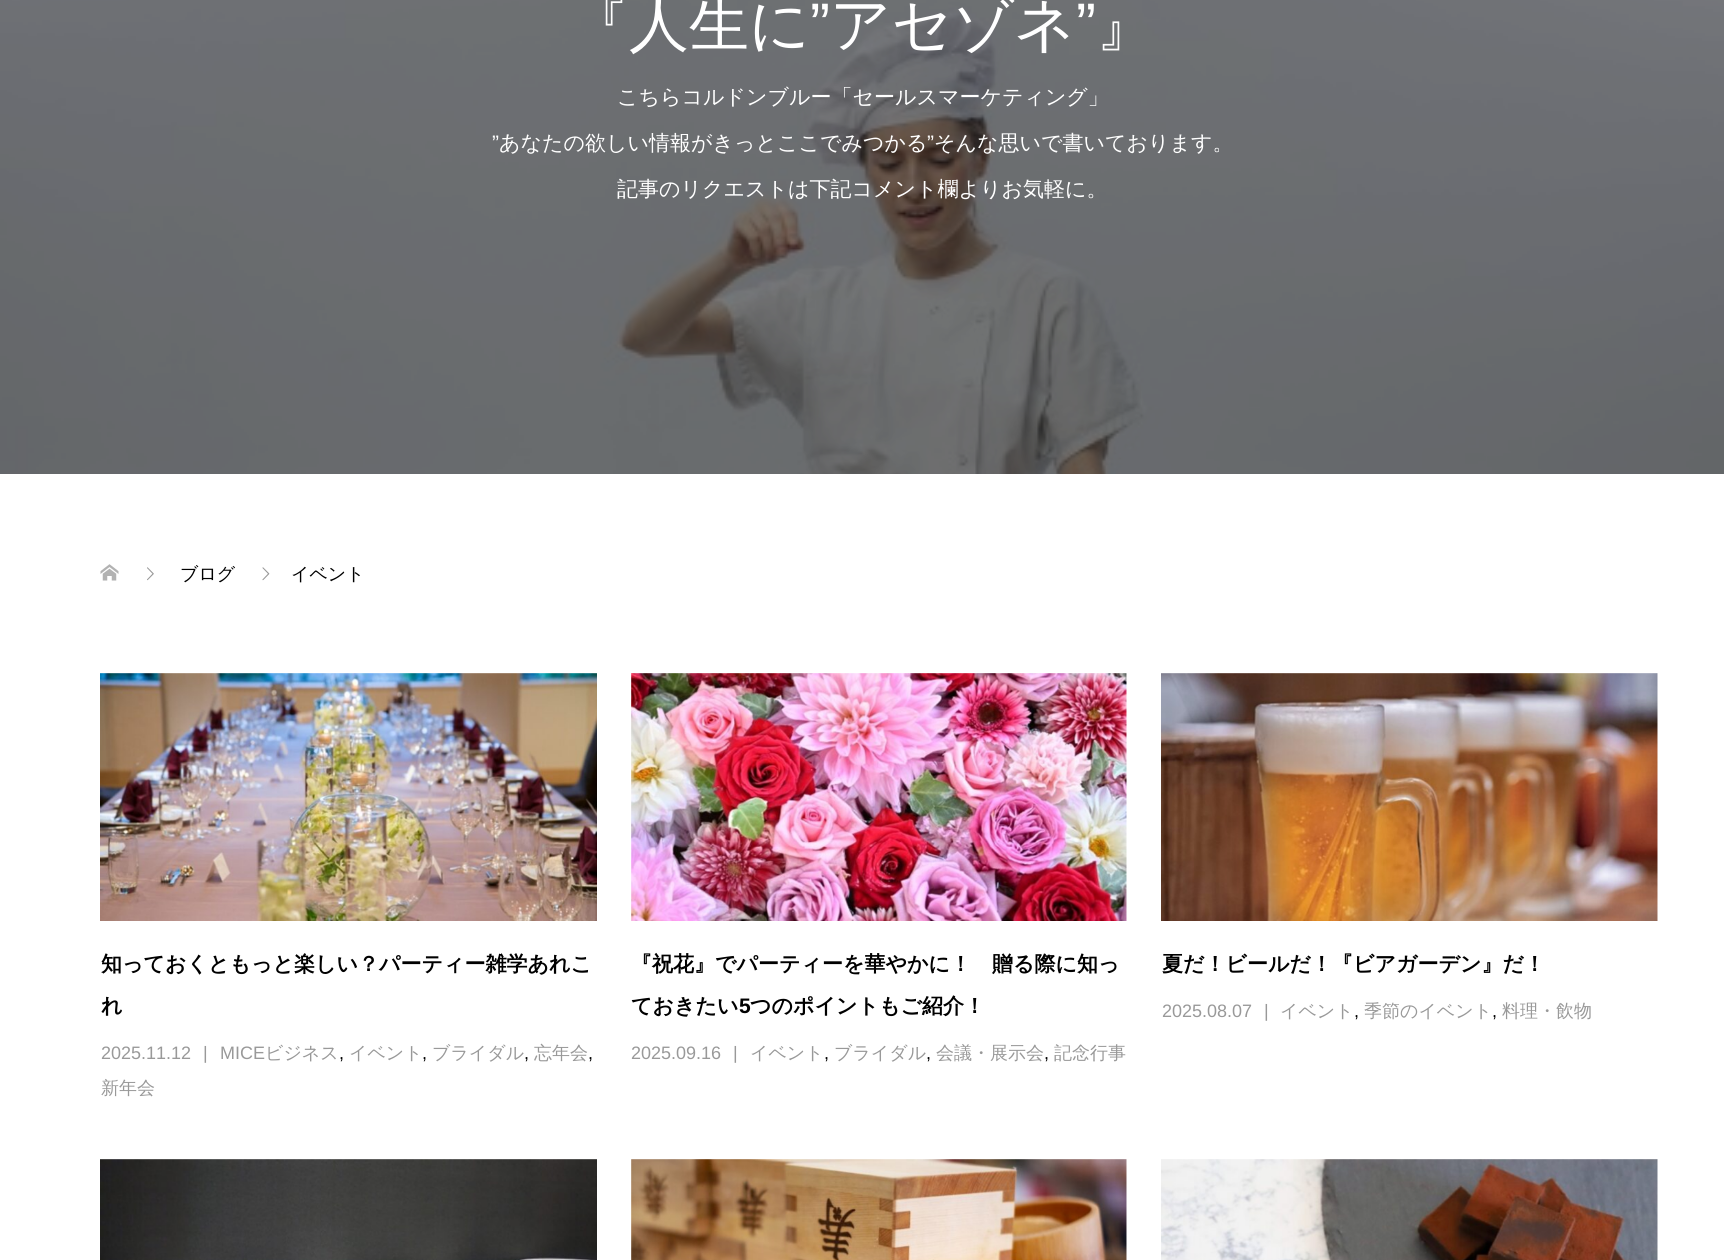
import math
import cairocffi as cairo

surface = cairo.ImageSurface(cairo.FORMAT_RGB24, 1724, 1260)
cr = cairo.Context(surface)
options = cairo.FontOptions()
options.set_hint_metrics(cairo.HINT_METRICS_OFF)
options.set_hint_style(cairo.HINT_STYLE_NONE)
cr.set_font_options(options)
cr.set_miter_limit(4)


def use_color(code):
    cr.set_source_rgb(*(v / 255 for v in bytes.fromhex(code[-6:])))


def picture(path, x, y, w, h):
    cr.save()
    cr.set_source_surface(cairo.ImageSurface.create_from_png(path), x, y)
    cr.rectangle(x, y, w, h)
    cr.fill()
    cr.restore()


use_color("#ffffff")
cr.paint()
picture("img1.png", 0, 0, 1724, 474)
cr.select_font_face("WenQuanYi Zen Hei Medium")
cr.set_font_size(60)
use_color("#ffffff")
cr.move_to(569, 45)
cr.show_text("『人生に")
cr.select_font_face("Liberation Sans")
cr.move_to(810, 45)
cr.show_text("”")
cr.select_font_face("WenQuanYi Zen Hei Medium")
cr.move_to(830, 45)
cr.show_text("アセゾネ")
cr.select_font_face("Liberation Sans")
cr.move_to(1076, 45)
cr.show_text("”")
cr.select_font_face("WenQuanYi Zen Hei Medium")
cr.move_to(1096, 45)
cr.show_text("』")
cr.set_font_size(21)
cr.move_to(617, 104)
cr.show_text("こちらコルドンブルー「セールスマーケティング」")
cr.select_font_face("Liberation Sans")
cr.move_to(492, 150)
cr.show_text("”")
cr.select_font_face("WenQuanYi Zen Hei Medium")
cr.move_to(499, 150)
cr.show_text("あなたの欲しい情報がきっとここでみつかる")
cr.select_font_face("Liberation Sans")
cr.move_to(927, 150)
cr.show_text("”")
cr.select_font_face("WenQuanYi Zen Hei Medium")
cr.move_to(934, 150)
cr.show_text("そんな思いで書いております。")
cr.move_to(617, 196)
cr.show_text("記事のリクエストは下記コメント欄よりお気軽に。")
picture("img2.png", 100, 564, 19, 17)
picture("img3.png", 147, 567, 7, 14)
cr.set_font_size(18)
use_color("#000000")
cr.move_to(180, 580)
cr.show_text("ブログ")
picture("img4.png", 262, 567, 8, 14)
cr.move_to(291, 580)
cr.show_text("イベント")
picture("img5.png", 100, 673, 497, 248)
cr.select_font_face("WenQuanYi Zen Hei", cairo.FONT_SLANT_NORMAL, cairo.FONT_WEIGHT_BOLD)
cr.set_font_size(21)
cr.move_to(101, 971)
cr.show_text("知っておくともっと楽しい？パーティー雑学あれこ")
cr.move_to(101, 1013)
cr.show_text("れ")
cr.select_font_face("Liberation Sans")
cr.set_font_size(18)
use_color("#999999")
cr.move_to(203, 1059)
cr.show_text("|")
cr.move_to(220, 1059)
cr.show_text("MICE")
cr.select_font_face("WenQuanYi Zen Hei Medium")
cr.move_to(265, 1059)
cr.show_text("ビジネス")
cr.select_font_face("Liberation Sans")
use_color("#000000")
cr.move_to(339, 1059)
cr.show_text(",")
cr.select_font_face("WenQuanYi Zen Hei Medium")
use_color("#999999")
cr.move_to(349, 1059)
cr.show_text("イベント")
cr.select_font_face("Liberation Sans")
use_color("#000000")
cr.move_to(422, 1059)
cr.show_text(",")
cr.select_font_face("WenQuanYi Zen Hei Medium")
use_color("#999999")
cr.move_to(432, 1059)
cr.show_text("ブライダル")
cr.select_font_face("Liberation Sans")
use_color("#000000")
cr.move_to(524, 1059)
cr.show_text(",")
cr.select_font_face("WenQuanYi Zen Hei Medium")
use_color("#999999")
cr.move_to(534, 1059)
cr.show_text("忘年会")
cr.select_font_face("Liberation Sans")
use_color("#000000")
cr.move_to(588, 1059)
cr.show_text(",")
cr.select_font_face("WenQuanYi Zen Hei Medium")
use_color("#999999")
cr.move_to(101, 1094)
cr.show_text("新年会")
cr.select_font_face("Liberation Sans")
cr.move_to(101, 1059)
cr.show_text("2025.11.12")
picture("img6.png", 631, 673, 496, 248)
cr.select_font_face("WenQuanYi Zen Hei", cairo.FONT_SLANT_NORMAL, cairo.FONT_WEIGHT_BOLD)
cr.set_font_size(21)
use_color("#000000")
cr.move_to(631, 971)
cr.show_text("『祝花』でパーティーを華やかに！　贈る際に知っ")
cr.move_to(631, 1013)
cr.show_text("ておきたい")
cr.select_font_face("Liberation Sans", cairo.FONT_SLANT_NORMAL, cairo.FONT_WEIGHT_BOLD)
cr.move_to(739, 1013)
cr.show_text("5")
cr.select_font_face("WenQuanYi Zen Hei", cairo.FONT_SLANT_NORMAL, cairo.FONT_WEIGHT_BOLD)
cr.move_to(750, 1013)
cr.show_text("つのポイントもご紹介！")
cr.select_font_face("Liberation Sans")
cr.set_font_size(18)
use_color("#999999")
cr.move_to(631, 1059)
cr.show_text("2025.09.16")
cr.move_to(733, 1059)
cr.show_text("|")
cr.select_font_face("WenQuanYi Zen Hei Medium")
cr.move_to(750, 1059)
cr.show_text("イベント")
cr.select_font_face("Liberation Sans")
use_color("#000000")
cr.move_to(824, 1059)
cr.show_text(",")
cr.select_font_face("WenQuanYi Zen Hei Medium")
use_color("#999999")
cr.move_to(834, 1059)
cr.show_text("ブライダル")
cr.select_font_face("Liberation Sans")
use_color("#000000")
cr.move_to(926, 1059)
cr.show_text(",")
cr.select_font_face("WenQuanYi Zen Hei Medium")
use_color("#999999")
cr.move_to(936, 1059)
cr.show_text("会議・展示会")
cr.select_font_face("Liberation Sans")
use_color("#000000")
cr.move_to(1044, 1059)
cr.show_text(",")
cr.select_font_face("WenQuanYi Zen Hei Medium")
use_color("#999999")
cr.move_to(1054, 1059)
cr.show_text("記念行事")
picture("img7.png", 1161, 673, 497, 248)
cr.select_font_face("WenQuanYi Zen Hei", cairo.FONT_SLANT_NORMAL, cairo.FONT_WEIGHT_BOLD)
cr.set_font_size(21)
use_color("#000000")
cr.move_to(1162, 971)
cr.show_text("夏だ！ビールだ！『ビアガーデン』だ！")
cr.select_font_face("Liberation Sans")
cr.set_font_size(18)
use_color("#999999")
cr.move_to(1162, 1017)
cr.show_text("2025.08.07")
cr.move_to(1264, 1017)
cr.show_text("|")
cr.select_font_face("WenQuanYi Zen Hei Medium")
cr.move_to(1280, 1017)
cr.show_text("イベント")
cr.select_font_face("Liberation Sans")
use_color("#000000")
cr.move_to(1354, 1017)
cr.show_text(",")
cr.select_font_face("WenQuanYi Zen Hei Medium")
use_color("#999999")
cr.move_to(1364, 1017)
cr.show_text("季節のイベント")
cr.select_font_face("Liberation Sans")
use_color("#000000")
cr.move_to(1492, 1017)
cr.show_text(",")
cr.select_font_face("WenQuanYi Zen Hei Medium")
use_color("#999999")
cr.move_to(1502, 1017)
cr.show_text("料理・飲物")
picture("img8.png", 100, 1159, 497, 101)
picture("img9.png", 631, 1159, 496, 101)
picture("img10.png", 1161, 1159, 497, 101)
surface.write_to_png("result.png")
